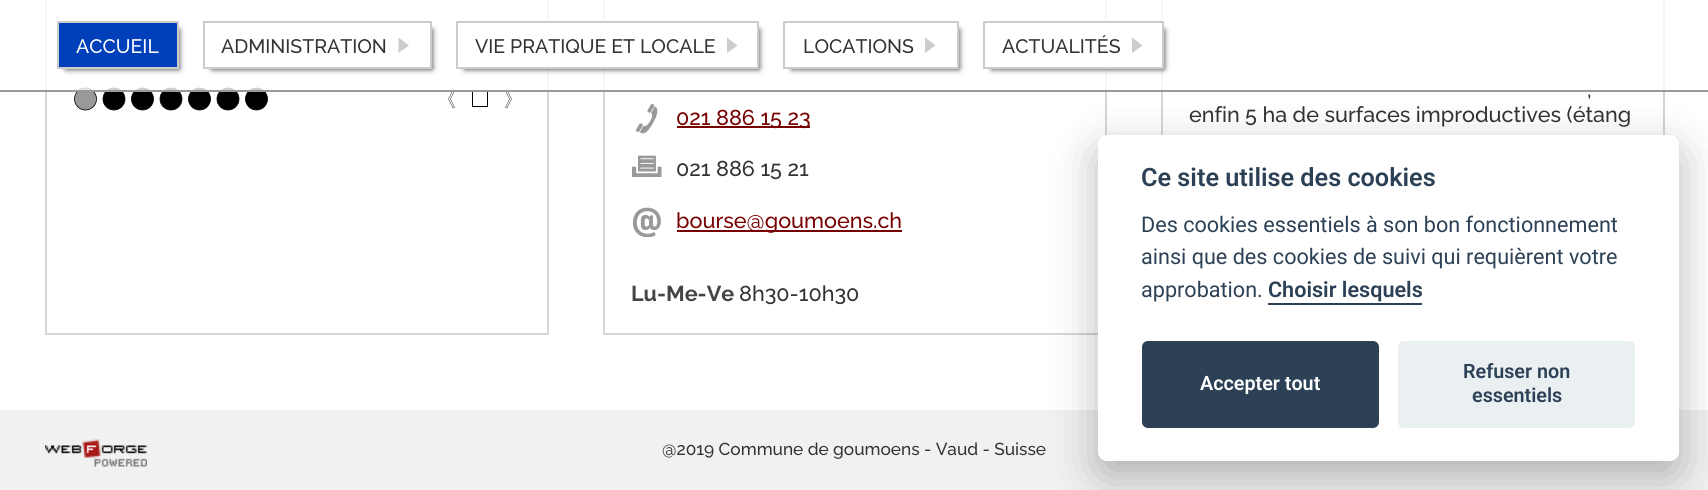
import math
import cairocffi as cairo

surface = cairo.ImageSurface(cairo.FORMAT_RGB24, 1708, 490)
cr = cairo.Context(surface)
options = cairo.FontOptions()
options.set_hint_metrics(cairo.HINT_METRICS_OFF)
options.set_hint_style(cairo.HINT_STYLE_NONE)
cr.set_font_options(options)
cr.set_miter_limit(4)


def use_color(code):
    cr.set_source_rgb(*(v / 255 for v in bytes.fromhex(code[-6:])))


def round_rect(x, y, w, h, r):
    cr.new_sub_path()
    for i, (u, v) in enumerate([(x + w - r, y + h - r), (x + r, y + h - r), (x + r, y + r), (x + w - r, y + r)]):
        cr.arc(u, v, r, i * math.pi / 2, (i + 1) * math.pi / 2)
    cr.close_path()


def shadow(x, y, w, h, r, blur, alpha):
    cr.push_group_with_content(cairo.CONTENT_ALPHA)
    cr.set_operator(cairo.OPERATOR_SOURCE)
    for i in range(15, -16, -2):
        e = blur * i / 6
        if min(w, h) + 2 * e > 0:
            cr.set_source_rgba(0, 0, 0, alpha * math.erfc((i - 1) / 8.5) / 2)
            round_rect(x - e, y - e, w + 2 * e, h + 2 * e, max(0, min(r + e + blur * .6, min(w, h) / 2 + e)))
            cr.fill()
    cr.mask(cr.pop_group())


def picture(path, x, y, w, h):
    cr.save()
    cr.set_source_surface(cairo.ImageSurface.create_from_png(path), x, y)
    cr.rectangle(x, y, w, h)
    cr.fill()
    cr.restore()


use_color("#f1f1f1")
cr.paint()
use_color("#ffffff")
cr.rectangle(0, 0, 1708, 410)
cr.fill()
cr.rectangle(46, -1, 502, 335)
use_color("#d6d6d6")
cr.stroke()
use_color("#999999")
cr.arc(85.5, 99, 11, 0, 2 * math.pi)
cr.fill_preserve()
use_color("#000000")
cr.set_line_width(0.8)
cr.stroke()
cr.arc(114, 99, 11, 0, 2 * math.pi)
cr.fill_preserve()
cr.stroke()
cr.arc(142.5, 99, 11, 0, 2 * math.pi)
cr.fill_preserve()
cr.stroke()
cr.arc(171, 99, 11, 0, 2 * math.pi)
cr.fill_preserve()
cr.stroke()
cr.arc(199.5, 99, 11, 0, 2 * math.pi)
cr.fill_preserve()
cr.stroke()
cr.arc(228, 99, 11, 0, 2 * math.pi)
cr.fill_preserve()
cr.stroke()
cr.arc(256.5, 99, 11, 0, 2 * math.pi)
cr.fill_preserve()
cr.stroke()
picture("img1.png", 448, 89, 7, 20)
picture("img2.png", 505, 89, 7, 20)
cr.rectangle(604, -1, 502, 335)
use_color("#d6d6d6")
cr.set_line_width(2)
cr.stroke()
cr.rectangle(1162, -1, 502, 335)
cr.stroke()
cr.set_source_rgba(1, 1, 1, 0.8)
cr.rectangle(45, 0, 1620, 90)
cr.fill()
cr.rectangle(472.5, 91.5, 15, 15)
use_color("#000000")
cr.set_line_width(1)
cr.stroke()
use_color("#999999")
cr.rectangle(0, 90, 1708, 2)
cr.fill()
use_color("#000000")
shadow(66, 30, 113, 39, 0, 3, 0.8)
use_color("#003fba")
cr.rectangle(58, 22, 120, 46)
cr.fill_preserve()
use_color("#cccccc")
cr.set_line_width(2)
cr.stroke()
cr.select_font_face("Raleway Thin")
cr.set_font_size(19.5)
use_color("#ffffff")
cr.move_to(76, 53)
cr.show_text("ACCUEIL")
cr.save()
cr.set_fill_rule(cairo.FILL_RULE_EVEN_ODD)
cr.new_path()
cr.move_to(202, 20)
cr.line_to(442, 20)
cr.line_to(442, 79)
cr.line_to(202, 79)
cr.close_path()
cr.move_to(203, 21)
cr.line_to(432, 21)
cr.line_to(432, 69)
cr.line_to(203, 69)
cr.close_path()
cr.clip()
use_color("#000000")
shadow(212, 30, 220, 39, 0, 3, 0.8)
cr.restore()
cr.rectangle(204, 22, 227, 46)
use_color("#cccccc")
cr.stroke()
use_color("#333333")
cr.move_to(221, 53)
cr.show_text("ADMINISTRATION")
use_color("#cccccc")
cr.new_path()
cr.move_to(409, 45.5)
cr.line_to(398.5, 37.5)
cr.line_to(398.5, 53)
cr.close_path()
cr.fill()
use_color("#000000")
shadow(465, 30, 294, 39, 0, 3, 0.8)
use_color("#ffffff")
cr.rectangle(457, 22, 301, 46)
cr.fill_preserve()
use_color("#cccccc")
cr.stroke()
use_color("#333333")
cr.move_to(475, 53)
cr.show_text("VIE PRATIQUE ET LOCALE")
use_color("#cccccc")
cr.new_path()
cr.move_to(737.5, 45.5)
cr.line_to(727, 37.5)
cr.line_to(727, 53)
cr.close_path()
cr.fill()
use_color("#000000")
shadow(792, 30, 167, 39, 0, 3, 0.8)
use_color("#ffffff")
cr.rectangle(784, 22, 174, 46)
cr.fill_preserve()
use_color("#cccccc")
cr.stroke()
use_color("#333333")
cr.move_to(803, 53)
cr.show_text("LOCATIONS")
use_color("#cccccc")
cr.new_path()
cr.move_to(935.5, 45.5)
cr.line_to(925, 37.5)
cr.line_to(925, 53)
cr.close_path()
cr.fill()
use_color("#000000")
shadow(992, 30, 172, 39, 0, 3, 0.8)
use_color("#ffffff")
cr.rectangle(984, 22, 179, 46)
cr.fill_preserve()
use_color("#cccccc")
cr.stroke()
use_color("#333333")
cr.move_to(1002, 53)
cr.show_text("ACTUALITÉS")
use_color("#cccccc")
cr.new_path()
cr.move_to(1142.5, 45.5)
cr.line_to(1132, 37.5)
cr.line_to(1132, 53)
cr.close_path()
cr.fill()
picture("img3.png", 635, 104, 23, 30)
use_color("#770000")
cr.rectangle(677, 126, 133, 2)
cr.fill()
cr.set_font_size(21.6)
cr.move_to(676, 125)
cr.show_text("021 886 15 23")
picture("img4.png", 632, 155, 30, 22)
use_color("#333333")
cr.move_to(676, 176)
cr.show_text("021 886 15 21")
picture("img5.png", 632, 207, 29, 30)
use_color("#770000")
cr.rectangle(677, 230, 225, 2)
cr.fill()
cr.move_to(676, 228)
cr.show_text("bourse@goumoens.ch")
cr.select_font_face("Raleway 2 Thin")
use_color("#444444")
cr.move_to(631, 301)
cr.show_text("Lu-Me-Ve")
cr.select_font_face("Raleway Thin")
use_color("#333333")
cr.move_to(739, 301)
cr.show_text("8h30-10h30")
cr.move_to(1587, 97)
cr.show_text(",")
cr.move_to(1189, 122)
cr.show_text("enfin 5 ha de surfaces improductives (étang")
use_color("#020203")
shadow(1098, 150, 581, 326, 9, 22.5, 0.28)
use_color("#ffffff")
round_rect(1098, 135, 581, 326, 9)
cr.fill()
cr.select_font_face("Roboto SemiBold")
cr.set_font_size(25.25)
use_color("#2d4156")
cr.move_to(1141, 186)
cr.show_text("Ce site utilise des cookies")
cr.select_font_face("Roboto")
cr.set_font_size(21.6)
cr.move_to(1141, 232)
cr.show_text("Des cookies essentiels à son bon fonctionnement")
cr.move_to(1141, 264)
cr.show_text("ainsi que des cookies de suivi qui requièrent votre")
cr.move_to(1141, 297)
cr.show_text("approbation.")
cr.select_font_face("Roboto SemiBold")
cr.move_to(1268, 297)
cr.show_text("Choisir lesquels")
cr.rectangle(1268, 303, 154, 2)
cr.fill()
round_rect(1142, 341, 237, 87, 6)
cr.fill()
cr.set_font_size(19.75)
use_color("#ffffff")
cr.move_to(1200, 390)
cr.show_text("Accepter tout")
use_color("#eaeff2")
round_rect(1398, 341, 237, 87, 6)
cr.fill()
use_color("#2d4156")
cr.move_to(1463, 378)
cr.show_text("Refuser non")
cr.move_to(1472, 402)
cr.show_text("essentiels")
picture("img6.png", 45, 439, 102, 28)
cr.select_font_face("Raleway Thin")
cr.set_font_size(17.25)
use_color("#333333")
cr.move_to(662, 455)
cr.show_text("@2019 Commune de goumoens - Vaud - Suisse")
surface.write_to_png("result.png")
